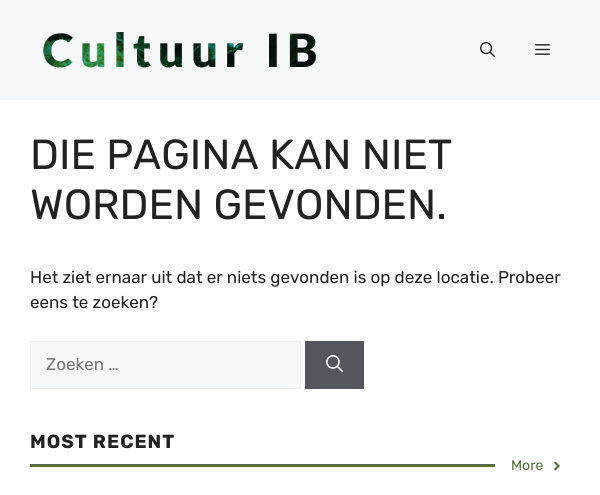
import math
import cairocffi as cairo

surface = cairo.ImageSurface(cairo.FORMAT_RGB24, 600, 495)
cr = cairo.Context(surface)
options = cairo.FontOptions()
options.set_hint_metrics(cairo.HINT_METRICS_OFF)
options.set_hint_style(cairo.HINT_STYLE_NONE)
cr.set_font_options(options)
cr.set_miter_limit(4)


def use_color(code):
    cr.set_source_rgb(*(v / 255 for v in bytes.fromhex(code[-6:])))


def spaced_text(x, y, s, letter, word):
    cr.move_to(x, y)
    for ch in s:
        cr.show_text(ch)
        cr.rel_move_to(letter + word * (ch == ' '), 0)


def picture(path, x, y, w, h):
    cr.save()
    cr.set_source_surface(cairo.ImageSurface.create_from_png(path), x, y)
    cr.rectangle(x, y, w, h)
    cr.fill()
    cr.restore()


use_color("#ffffff")
cr.paint()
use_color("#f7f8f9")
cr.rectangle(0, 0, 600, 100)
cr.fill()
picture("img1.png", 43, 32, 273, 36)
picture("img2.png", 480, 42, 15, 15)
picture("img3.png", 535, 44, 15, 11)
cr.select_font_face("Rubik")
cr.set_font_size(42)
use_color("#222222")
cr.move_to(30, 169)
cr.show_text("DIE PAGINA KAN NIET")
cr.move_to(30, 219)
cr.show_text("WORDEN GEVONDEN.")
cr.set_font_size(17)
cr.move_to(30, 283)
cr.show_text("Het ziet ernaar uit dat er niets gevonden is op deze locatie. Probeer")
cr.move_to(30, 308)
cr.show_text("eens te zoeken?")
use_color("#f7f8f9")
cr.rectangle(30.5, 341.5, 270, 47)
cr.fill_preserve()
use_color("#f0f0f0")
cr.set_line_width(1)
cr.stroke()
use_color("#757575")
cr.move_to(46, 370)
cr.show_text("Zoeken …")
use_color("#55555e")
cr.rectangle(305, 341, 59, 48)
cr.fill()
picture("img4.png", 326, 355, 17, 17)
cr.select_font_face("Rubik", cairo.FONT_SLANT_NORMAL, cairo.FONT_WEIGHT_BOLD)
cr.set_font_size(19)
use_color("#222222")
spaced_text(30, 448, "MOST RECENT", 1, 0)
use_color("#566e3d")
cr.rectangle(30, 464, 465, 3)
cr.fill()
cr.select_font_face("Rubik")
cr.set_font_size(14)
cr.move_to(511, 470)
cr.show_text("More")
picture("img5.png", 554, 461, 6, 10)
surface.write_to_png("result.png")
